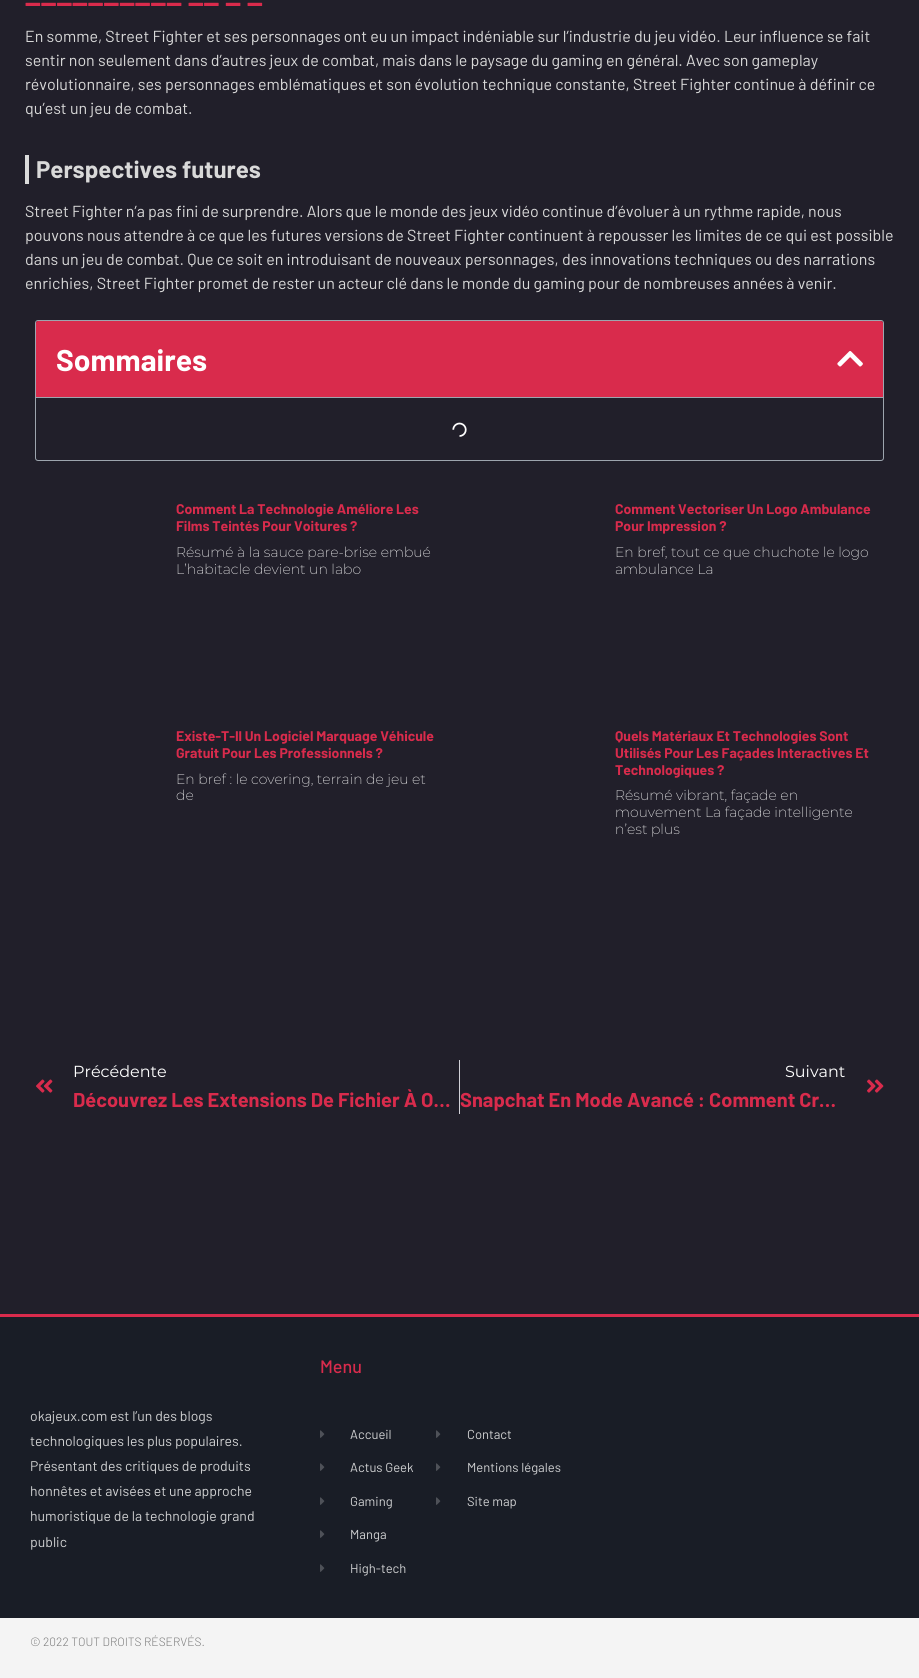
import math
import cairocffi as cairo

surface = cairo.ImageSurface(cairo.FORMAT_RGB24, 919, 1678)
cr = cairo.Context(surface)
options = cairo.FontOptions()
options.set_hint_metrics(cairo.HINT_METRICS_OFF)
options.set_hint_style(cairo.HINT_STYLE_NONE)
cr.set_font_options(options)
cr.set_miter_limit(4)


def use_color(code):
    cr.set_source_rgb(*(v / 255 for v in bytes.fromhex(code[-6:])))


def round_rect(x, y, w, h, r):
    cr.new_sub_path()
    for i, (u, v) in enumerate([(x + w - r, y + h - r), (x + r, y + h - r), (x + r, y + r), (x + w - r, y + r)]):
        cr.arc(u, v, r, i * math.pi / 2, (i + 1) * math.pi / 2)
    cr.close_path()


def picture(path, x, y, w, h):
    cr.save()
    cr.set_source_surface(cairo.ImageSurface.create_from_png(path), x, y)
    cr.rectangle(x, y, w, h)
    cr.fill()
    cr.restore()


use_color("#211f2a")
cr.paint()
cr.select_font_face("Barlow", cairo.FONT_SLANT_NORMAL, cairo.FONT_WEIGHT_BOLD)
cr.set_font_size(30)
use_color("#d92b4c")
cr.move_to(25, 6)
cr.show_text("__________ __ _ _")
cr.select_font_face("Barlow")
cr.set_font_size(16)
use_color("#d9d9d9")
cr.move_to(25, 42)
cr.show_text("En somme, Street Fighter et ses personnages ont eu un impact indéniable sur l’industrie du jeu vidéo. Leur influence se fait")
cr.move_to(25, 66)
cr.show_text("sentir non seulement dans d’autres jeux de combat, mais dans le paysage du gaming en général. Avec son gameplay")
cr.move_to(25, 90)
cr.show_text("révolutionnaire, ses personnages emblématiques et son évolution technique constante, Street Fighter continue à définir ce")
cr.move_to(25, 114)
cr.show_text("qu’est un jeu de combat.")
use_color("#dbdbdb")
cr.rectangle(25, 155, 4, 29)
cr.fill()
cr.select_font_face("Barlow", cairo.FONT_SLANT_NORMAL, cairo.FONT_WEIGHT_BOLD)
cr.set_font_size(24)
use_color("#d9d9d9")
cr.move_to(36, 178)
cr.show_text("Perspectives futures")
cr.select_font_face("Barlow")
cr.set_font_size(16)
cr.move_to(25, 217)
cr.show_text("Street Fighter n’a pas fini de surprendre. Alors que le monde des jeux vidéo continue d’évoluer à un rythme rapide, nous")
cr.move_to(25, 241)
cr.show_text("pouvons nous attendre à ce que les futures versions de Street Fighter continuent à repousser les limites de ce qui est possible")
cr.move_to(25, 265)
cr.show_text("dans un jeu de combat. Que ce soit en introduisant de nouveaux personnages, des innovations techniques ou des narrations")
cr.move_to(25, 289)
cr.show_text("enrichies, Street Fighter promet de rester un acteur clé dans le monde du gaming pour de nombreuses années à venir.")
round_rect(35.5, 320.5, 848, 140, 2.5)
use_color("#9da5ae")
cr.set_line_width(1)
cr.stroke()
use_color("#d92b4c")
cr.new_path()
cr.move_to(38, 321)
cr.line_to(881, 321)
cr.curve_to(882, 321, 883, 322, 883, 323)
cr.line_to(883, 398)
cr.line_to(36, 398)
cr.line_to(36, 323)
cr.curve_to(36, 322, 37, 321, 38, 321)
cr.close_path()
cr.fill()
use_color("#9da5ae")
cr.rectangle(36, 397, 847, 1)
cr.fill()
cr.select_font_face("Barlow", cairo.FONT_SLANT_NORMAL, cairo.FONT_WEIGHT_BOLD)
cr.set_font_size(30)
use_color("#ffffff")
cr.move_to(56, 371)
cr.show_text("Sommaires")
picture("img1.png", 837, 351, 26, 16)
picture("img2.png", 452, 422, 15, 15)
cr.set_font_size(14)
use_color("#d92b4c")
cr.move_to(176, 514)
cr.show_text("Comment La Technologie Améliore Les")
cr.move_to(176, 531)
cr.show_text("Films Teintés Pour Voitures ?")
cr.select_font_face("Montserrat ExtraLight")
use_color("#f8f8f8")
cr.move_to(176, 557)
cr.show_text("Résumé à la sauce pare-brise embué")
cr.move_to(176, 574)
cr.show_text("L’habitacle devient un labo")
cr.select_font_face("Barlow", cairo.FONT_SLANT_NORMAL, cairo.FONT_WEIGHT_BOLD)
use_color("#d92b4c")
cr.move_to(615, 514)
cr.show_text("Comment Vectoriser Un Logo Ambulance")
cr.move_to(615, 531)
cr.show_text("Pour Impression ?")
cr.select_font_face("Montserrat ExtraLight")
use_color("#f8f8f8")
cr.move_to(615, 557)
cr.show_text("En bref, tout ce que chuchote le logo")
cr.move_to(615, 574)
cr.show_text("ambulance La")
cr.select_font_face("Barlow", cairo.FONT_SLANT_NORMAL, cairo.FONT_WEIGHT_BOLD)
use_color("#d92b4c")
cr.move_to(176, 741)
cr.show_text("Existe-T-Il Un Logiciel Marquage Véhicule")
cr.move_to(176, 758)
cr.show_text("Gratuit Pour Les Professionnels ?")
cr.select_font_face("Montserrat ExtraLight")
use_color("#f8f8f8")
cr.move_to(176, 784)
cr.show_text("En bref : le covering, terrain de jeu et")
cr.move_to(176, 800)
cr.show_text("de")
cr.select_font_face("Barlow", cairo.FONT_SLANT_NORMAL, cairo.FONT_WEIGHT_BOLD)
use_color("#d92b4c")
cr.move_to(615, 741)
cr.show_text("Quels Matériaux Et Technologies Sont")
cr.move_to(615, 758)
cr.show_text("Utilisés Pour Les Façades Interactives Et")
cr.move_to(615, 775)
cr.show_text("Technologiques ?")
cr.select_font_face("Montserrat ExtraLight")
use_color("#f8f8f8")
cr.move_to(615, 800)
cr.show_text("Résumé vibrant, façade en")
cr.move_to(615, 817)
cr.show_text("mouvement La façade intelligente")
cr.move_to(615, 834)
cr.show_text("n’est plus")
picture("img3.png", 36, 1079, 17, 14)
cr.select_font_face("Montserrat")
cr.set_font_size(16)
use_color("#ffffff")
cr.move_to(73, 1077)
cr.show_text("Précédente")
cr.select_font_face("Barlow", cairo.FONT_SLANT_NORMAL, cairo.FONT_WEIGHT_BOLD)
cr.set_font_size(20)
use_color("#d92b4c")
cr.move_to(73, 1107)
cr.show_text("Découvrez Les Extensions De Fichier À O…")
use_color("#d2d1d8")
cr.rectangle(459, 1060, 1, 54)
cr.fill()
cr.select_font_face("Montserrat")
cr.set_font_size(16)
use_color("#ffffff")
cr.move_to(785, 1077)
cr.show_text("Suivant")
cr.select_font_face("Barlow", cairo.FONT_SLANT_NORMAL, cairo.FONT_WEIGHT_BOLD)
cr.set_font_size(20)
use_color("#d92b4c")
cr.move_to(460, 1107)
cr.show_text("Snapchat En Mode Avancé : Comment Cr…")
picture("img4.png", 867, 1079, 17, 14)
use_color("#191d26")
cr.rectangle(0, 1317, 919, 301)
cr.fill()
use_color("#d92b4c")
cr.rectangle(0, 1314, 919, 3)
cr.fill()
cr.select_font_face("Barlow")
cr.set_font_size(14)
use_color("#cfd0d1")
cr.move_to(30, 1421)
cr.show_text("okajeux.com est l’un des blogs")
cr.move_to(30, 1446)
cr.show_text("technologiques les plus populaires.")
cr.move_to(30, 1471)
cr.show_text("Présentant des critiques de produits")
cr.move_to(30, 1496)
cr.show_text("honnêtes et avisées et une approche")
cr.move_to(30, 1521)
cr.show_text("humoristique de la technologie grand")
cr.move_to(30, 1547)
cr.show_text("public")
cr.select_font_face("Barlow Medium")
cr.set_font_size(18)
use_color("#d92b4c")
cr.move_to(320, 1373)
cr.show_text("Menu")
picture("img5.png", 320, 1430, 5, 8)
cr.select_font_face("Barlow")
cr.set_font_size(13)
use_color("#cfd0d1")
cr.move_to(350, 1439)
cr.show_text("Accueil")
picture("img5.png", 320, 1463, 5, 8)
cr.move_to(350, 1472)
cr.show_text("Actus Geek")
picture("img5.png", 320, 1497, 5, 8)
cr.move_to(350, 1506)
cr.show_text("Gaming")
picture("img5.png", 320, 1530, 5, 8)
cr.move_to(350, 1539)
cr.show_text("Manga")
picture("img5.png", 320, 1564, 5, 8)
cr.move_to(350, 1573)
cr.show_text("High-tech")
picture("img5.png", 436, 1430, 5, 8)
cr.move_to(467, 1439)
cr.show_text("Contact")
picture("img5.png", 436, 1463, 5, 8)
cr.move_to(467, 1472)
cr.show_text("Mentions légales")
picture("img5.png", 436, 1497, 5, 8)
cr.move_to(467, 1506)
cr.show_text("Site map")
use_color("#f4f4f4")
cr.rectangle(0, 1618, 919, 60)
cr.fill()
cr.select_font_face("Barlow Light")
cr.set_font_size(12)
use_color("#7a7a7a")
cr.move_to(30, 1646)
cr.show_text("© 2022 TOUT DROITS RÉSERVÉS.")
surface.write_to_png("result.png")
